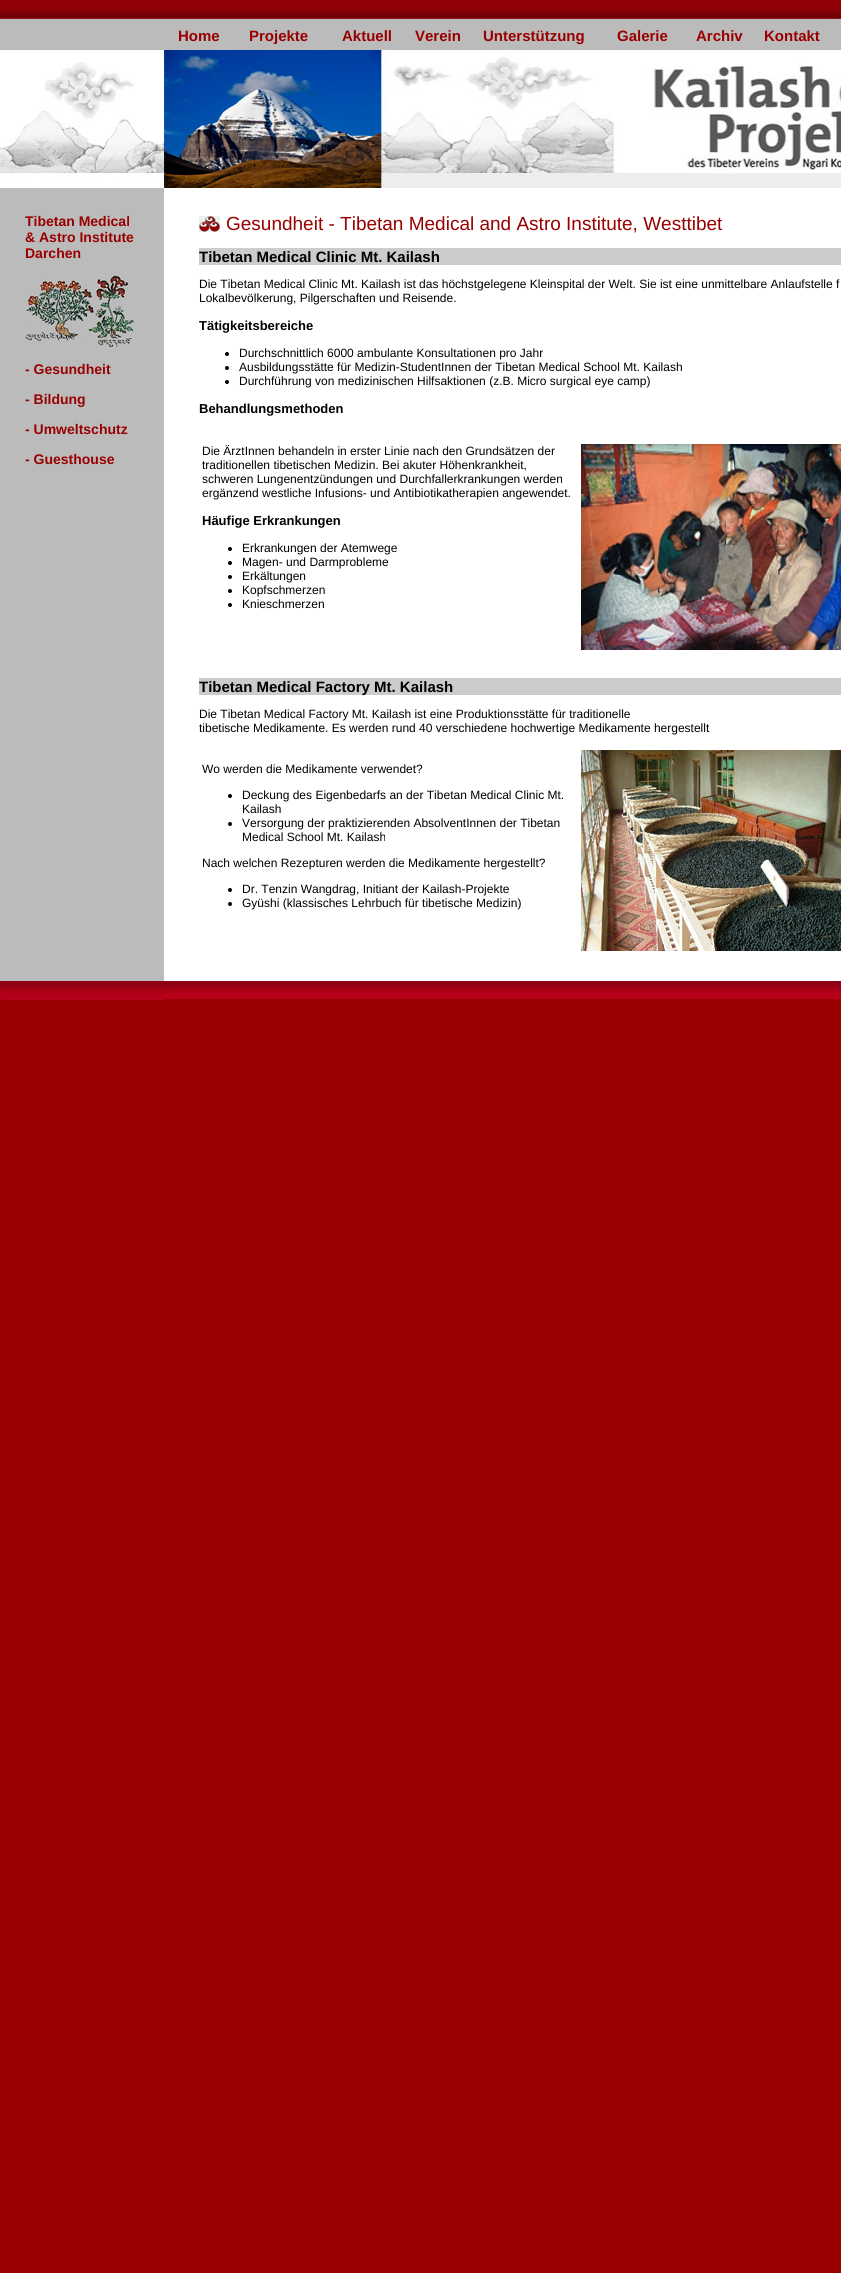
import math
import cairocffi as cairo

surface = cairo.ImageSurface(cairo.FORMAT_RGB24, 841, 2273)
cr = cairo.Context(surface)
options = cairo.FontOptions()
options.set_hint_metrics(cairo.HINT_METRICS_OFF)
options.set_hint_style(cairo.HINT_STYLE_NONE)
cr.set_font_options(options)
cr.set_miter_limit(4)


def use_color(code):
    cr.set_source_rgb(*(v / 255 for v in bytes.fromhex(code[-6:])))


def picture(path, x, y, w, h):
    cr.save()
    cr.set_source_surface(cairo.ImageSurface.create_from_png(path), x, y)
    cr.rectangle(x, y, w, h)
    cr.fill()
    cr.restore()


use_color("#990000")
cr.paint()
picture("img1.png", 0, 0, 164, 19)
picture("img2.png", 164, 0, 677, 19)
use_color("#bbbbbb")
cr.rectangle(0, 19, 841, 31)
cr.fill()
cr.select_font_face("Liberation Sans", cairo.FONT_SLANT_NORMAL, cairo.FONT_WEIGHT_BOLD)
cr.set_font_size(15)
use_color("#990000")
cr.move_to(178, 41)
cr.show_text("Home")
cr.move_to(249, 41)
cr.show_text("Projekte")
cr.move_to(342, 41)
cr.show_text("Aktuell")
cr.move_to(415, 41)
cr.show_text("Verein")
cr.move_to(483, 41)
cr.show_text("Unterstützung")
cr.move_to(617, 41)
cr.show_text("Galerie")
cr.move_to(696, 41)
cr.show_text("Archiv")
cr.move_to(764, 41)
cr.show_text("Kontakt")
picture("img3.png", 0, 50, 164, 138)
picture("img4.png", 164, 50, 677, 138)
use_color("#bbbbbb")
cr.rectangle(0, 188, 164, 793)
cr.fill()
cr.set_font_size(14)
use_color("#990000")
cr.move_to(25, 226)
cr.show_text("Tibetan Medical")
cr.move_to(25, 242)
cr.show_text("& Astro Institute")
cr.move_to(25, 258)
cr.show_text("Darchen")
picture("img5.png", 25, 275, 110, 72)
cr.move_to(25, 374)
cr.show_text("- Gesundheit")
cr.move_to(25, 404)
cr.show_text("- Bildung")
cr.move_to(25, 434)
cr.show_text("- Umweltschutz")
cr.move_to(25, 464)
cr.show_text("- Guesthouse")
use_color("#ffffff")
cr.rectangle(164, 188, 677, 793)
cr.fill()
picture("img6.png", 199, 216, 21, 16)
cr.select_font_face("Liberation Sans")
cr.set_font_size(19)
use_color("#990000")
cr.move_to(226, 230)
cr.show_text("Gesundheit - Tibetan Medical and Astro Institute, Westtibet")
use_color("#cccccc")
cr.rectangle(199, 248, 642, 17)
cr.fill()
cr.select_font_face("Liberation Sans", cairo.FONT_SLANT_NORMAL, cairo.FONT_WEIGHT_BOLD)
cr.set_font_size(15)
use_color("#000000")
cr.move_to(199, 262)
cr.show_text("Tibetan Medical Clinic Mt. Kailash")
cr.select_font_face("Liberation Sans")
cr.set_font_size(12)
cr.move_to(199, 288)
cr.show_text("Die Tibetan Medical Clinic Mt. Kailash ist das höchstgelegene Kleinspital der Welt. Sie ist eine unmittelbare Anlaufstelle f")
cr.move_to(199, 302)
cr.show_text("Lokalbevölkerung, Pilgerschaften und Reisende.")
cr.select_font_face("Liberation Sans", cairo.FONT_SLANT_NORMAL, cairo.FONT_WEIGHT_BOLD)
cr.set_font_size(13)
cr.move_to(199, 330)
cr.show_text("Tätigkeitsbereiche")
cr.new_path()
cr.arc(227, 354, 2, 0, 2 * math.pi)
cr.fill()
cr.select_font_face("Liberation Sans")
cr.set_font_size(12)
cr.move_to(239, 357)
cr.show_text("Durchschnittlich 6000 ambulante Konsultationen pro Jahr")
cr.new_path()
cr.arc(227, 368, 2, 0, 2 * math.pi)
cr.fill()
cr.move_to(239, 371)
cr.show_text("Ausbildungsstätte für Medizin-StudentInnen der Tibetan Medical School Mt. Kailash")
cr.new_path()
cr.arc(227, 382, 2, 0, 2 * math.pi)
cr.fill()
cr.move_to(239, 385)
cr.show_text("Durchführung von medizinischen Hilfsaktionen (z.B. Micro surgical eye camp)")
cr.select_font_face("Liberation Sans", cairo.FONT_SLANT_NORMAL, cairo.FONT_WEIGHT_BOLD)
cr.set_font_size(13)
cr.move_to(199, 413)
cr.show_text("Behandlungsmethoden")
cr.select_font_face("Liberation Sans")
cr.set_font_size(12)
cr.move_to(202, 455)
cr.show_text("Die ÄrztInnen behandeln in erster Linie nach den Grundsätzen der")
cr.move_to(202, 469)
cr.show_text("traditionellen tibetischen Medizin. Bei akuter Höhenkrankheit,")
cr.move_to(202, 483)
cr.show_text("schweren Lungenentzündungen und Durchfallerkrankungen werden")
cr.move_to(202, 497)
cr.show_text("ergänzend westliche Infusions- und Antibiotikatherapien angewendet.")
cr.select_font_face("Liberation Sans", cairo.FONT_SLANT_NORMAL, cairo.FONT_WEIGHT_BOLD)
cr.set_font_size(13)
cr.move_to(202, 525)
cr.show_text("Häufige Erkrankungen")
cr.new_path()
cr.arc(230, 549, 2, 0, 2 * math.pi)
cr.fill()
cr.select_font_face("Liberation Sans")
cr.set_font_size(12)
cr.move_to(242, 552)
cr.show_text("Erkrankungen der Atemwege")
cr.new_path()
cr.arc(230, 563, 2, 0, 2 * math.pi)
cr.fill()
cr.move_to(242, 566)
cr.show_text("Magen- und Darmprobleme")
cr.new_path()
cr.arc(230, 577, 2, 0, 2 * math.pi)
cr.fill()
cr.move_to(242, 580)
cr.show_text("Erkältungen")
cr.new_path()
cr.arc(230, 591, 2, 0, 2 * math.pi)
cr.fill()
cr.move_to(242, 594)
cr.show_text("Kopfschmerzen")
cr.new_path()
cr.arc(230, 605, 2, 0, 2 * math.pi)
cr.fill()
cr.move_to(242, 608)
cr.show_text("Knieschmerzen")
picture("img7.png", 581, 444, 260, 206)
use_color("#cccccc")
cr.rectangle(199, 678, 642, 17)
cr.fill()
cr.select_font_face("Liberation Sans", cairo.FONT_SLANT_NORMAL, cairo.FONT_WEIGHT_BOLD)
cr.set_font_size(15)
use_color("#000000")
cr.move_to(199, 692)
cr.show_text("Tibetan Medical Factory Mt. Kailash")
cr.select_font_face("Liberation Sans")
cr.set_font_size(12)
cr.move_to(199, 718)
cr.show_text("Die Tibetan Medical Factory Mt. Kailash ist eine Produktionsstätte für traditionelle")
cr.move_to(199, 732)
cr.show_text("tibetische Medikamente. Es werden rund 40 verschiedene hochwertige Medikamente hergestellt")
cr.move_to(202, 773)
cr.show_text("Wo werden die Medikamente verwendet?")
cr.new_path()
cr.arc(230, 796, 2, 0, 2 * math.pi)
cr.fill()
cr.move_to(242, 799)
cr.show_text("Deckung des Eigenbedarfs an der Tibetan Medical Clinic Mt.")
cr.move_to(242, 813)
cr.show_text("Kailash")
cr.new_path()
cr.arc(230, 824, 2, 0, 2 * math.pi)
cr.fill()
cr.move_to(242, 827)
cr.show_text("Versorgung der praktizierenden AbsolventInnen der Tibetan")
cr.move_to(242, 841)
cr.show_text("Medical School Mt. Kailash")
cr.move_to(202, 867)
cr.show_text("Nach welchen Rezepturen werden die Medikamente hergestellt?")
cr.new_path()
cr.arc(230, 890, 2, 0, 2 * math.pi)
cr.fill()
cr.move_to(242, 893)
cr.show_text("Dr. Tenzin Wangdrag, Initiant der Kailash-Projekte")
cr.new_path()
cr.arc(230, 904, 2, 0, 2 * math.pi)
cr.fill()
cr.move_to(242, 907)
cr.show_text("Gyüshi (klassisches Lehrbuch für tibetische Medizin)")
picture("img8.png", 581, 750, 260, 201)
picture("img9.png", 0, 981, 164, 19)
picture("img10.png", 164, 981, 677, 18)
surface.write_to_png("result.png")
